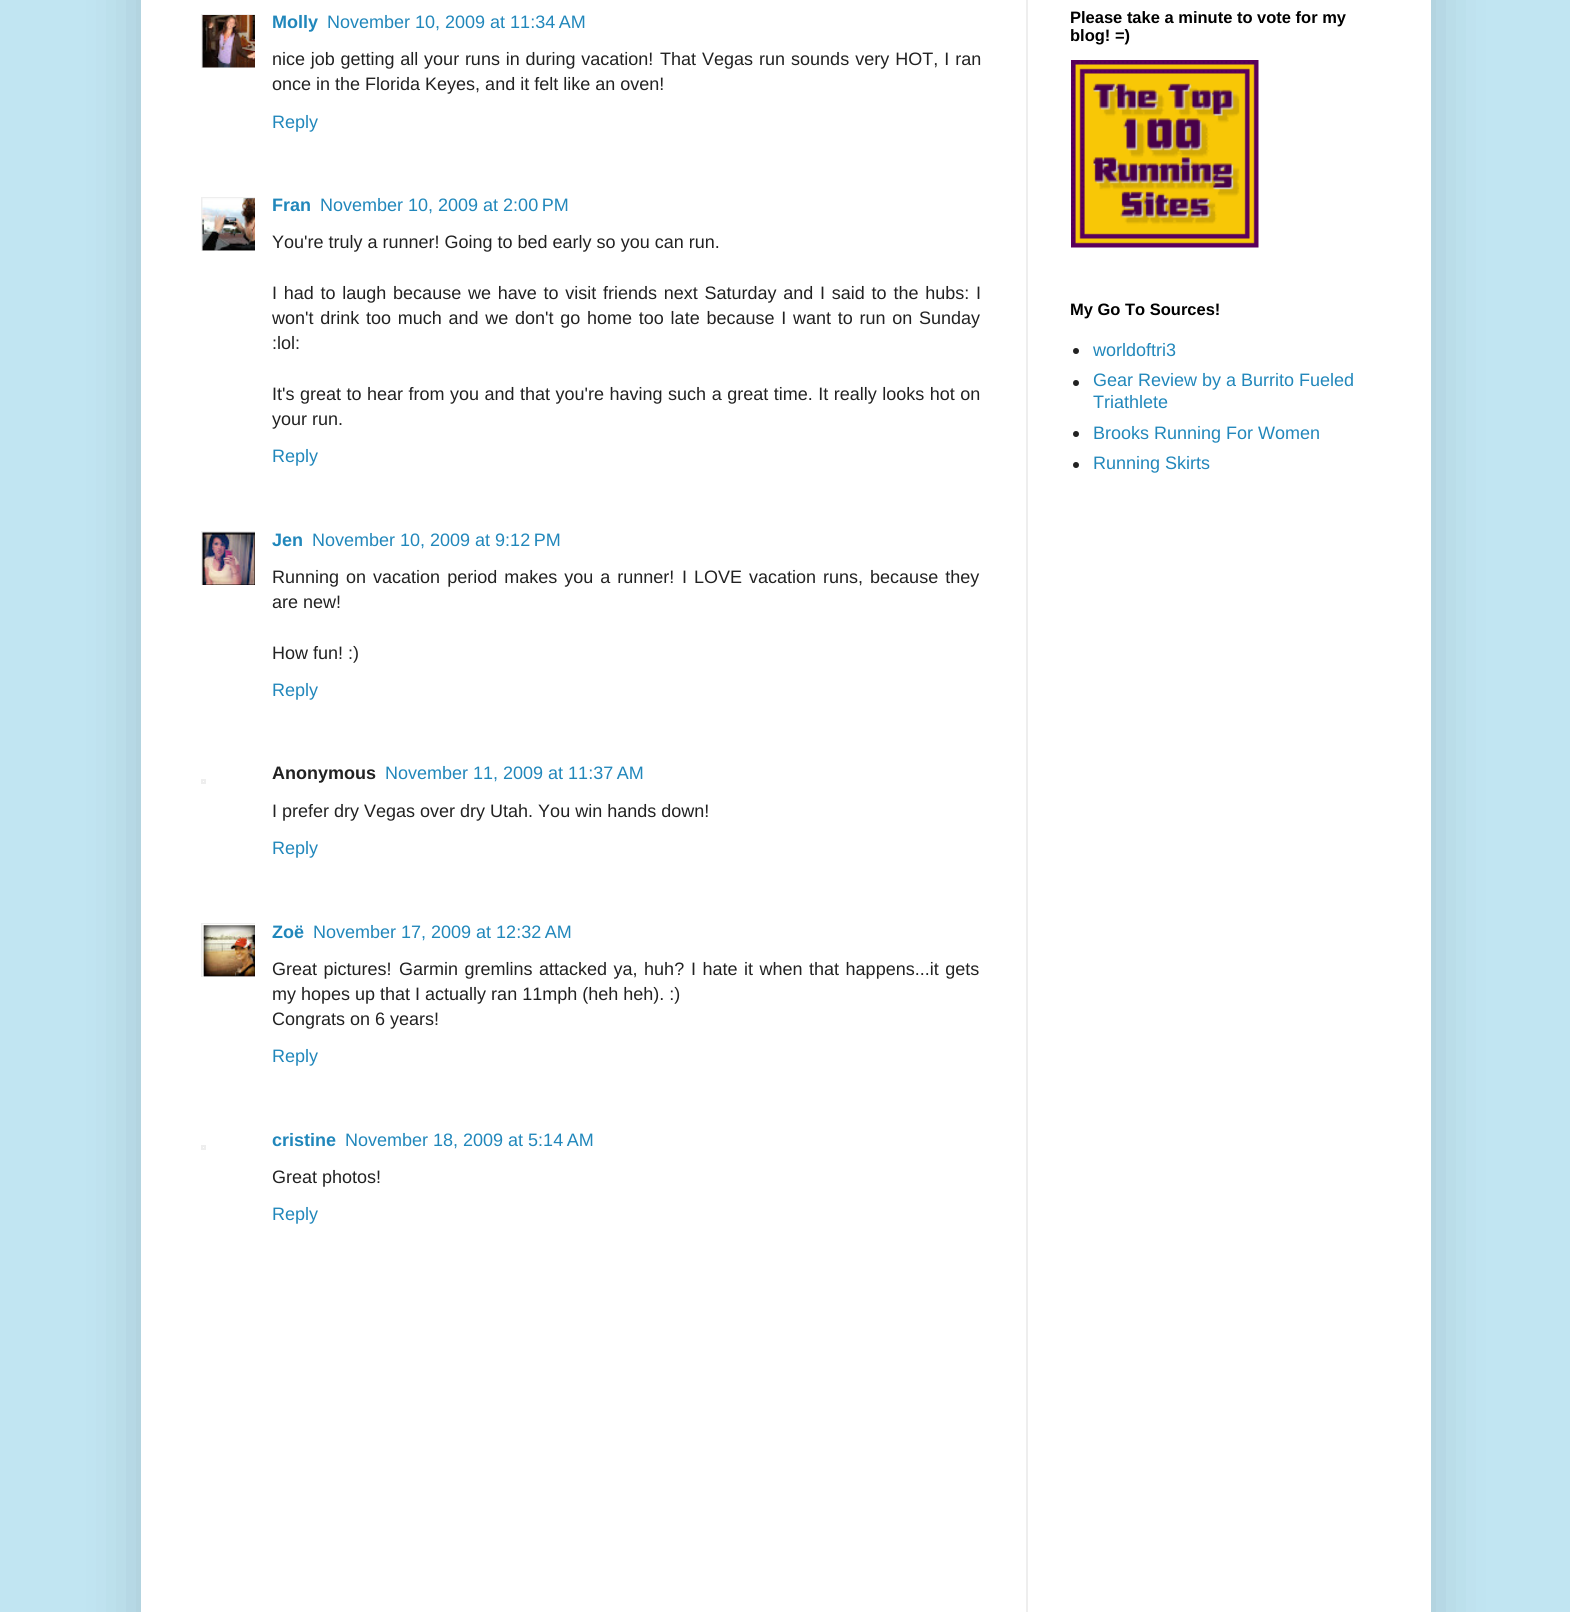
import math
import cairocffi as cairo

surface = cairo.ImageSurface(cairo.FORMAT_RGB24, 1570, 1612)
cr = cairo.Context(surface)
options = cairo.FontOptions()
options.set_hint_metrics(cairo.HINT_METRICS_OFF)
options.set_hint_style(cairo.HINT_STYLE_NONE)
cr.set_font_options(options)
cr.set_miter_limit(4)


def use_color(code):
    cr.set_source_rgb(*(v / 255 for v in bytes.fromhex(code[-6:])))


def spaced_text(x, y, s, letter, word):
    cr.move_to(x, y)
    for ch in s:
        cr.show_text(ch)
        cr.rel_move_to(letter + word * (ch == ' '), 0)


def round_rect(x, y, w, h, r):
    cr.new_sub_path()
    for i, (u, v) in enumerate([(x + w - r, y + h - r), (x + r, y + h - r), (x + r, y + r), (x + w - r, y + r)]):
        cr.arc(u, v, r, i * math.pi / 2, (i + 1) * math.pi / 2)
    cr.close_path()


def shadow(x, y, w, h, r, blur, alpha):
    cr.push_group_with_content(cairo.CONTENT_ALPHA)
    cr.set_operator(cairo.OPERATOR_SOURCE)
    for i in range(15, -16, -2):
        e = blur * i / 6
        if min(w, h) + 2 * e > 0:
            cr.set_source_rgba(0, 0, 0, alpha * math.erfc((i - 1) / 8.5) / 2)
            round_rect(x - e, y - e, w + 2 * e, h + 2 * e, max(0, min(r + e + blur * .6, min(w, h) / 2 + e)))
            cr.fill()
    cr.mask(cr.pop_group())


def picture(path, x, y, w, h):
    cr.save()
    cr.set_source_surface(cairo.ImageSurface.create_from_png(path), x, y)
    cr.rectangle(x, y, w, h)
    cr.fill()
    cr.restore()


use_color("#c1e5f2")
cr.paint()
use_color("#000000")
shadow(141, -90, 1290, 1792, 0, 30, 0.15)
use_color("#ffffff")
cr.rectangle(141, 0, 1290, 1612)
cr.fill()
use_color("#eeeeee")
cr.rectangle(1026, 0, 2, 1612)
cr.fill()
cr.save()
cr.rectangle(201, 14, 54, 54)
cr.clip()
cr.rectangle(202, 15, 55, 55)
cr.stroke()
cr.restore()
picture("img1.png", 202, 15, 53, 53)
cr.select_font_face("Liberation Sans", cairo.FONT_SLANT_NORMAL, cairo.FONT_WEIGHT_BOLD)
cr.set_font_size(18)
use_color("#2187bb")
cr.move_to(272, 28)
cr.show_text("Molly")
cr.select_font_face("Liberation Sans")
cr.move_to(327, 28)
cr.show_text("November 10, 2009 at 11:34 AM")
use_color("#222222")
spaced_text(272, 65, "nice job getting all your runs in during vacation!", 0, 0.75)
spaced_text(660, 65, "That Vegas run sounds very HOT, I ran", 0, 1)
cr.move_to(272, 90)
cr.show_text("once in the Florida Keyes, and it felt like an oven!")
use_color("#2187bb")
cr.move_to(272, 128)
cr.show_text("Reply")
cr.save()
cr.rectangle(201, 197, 54, 54)
cr.clip()
cr.rectangle(202, 198, 55, 55)
use_color("#eeeeee")
cr.stroke()
cr.restore()
picture("img2.png", 202, 198, 53, 53)
cr.select_font_face("Liberation Sans", cairo.FONT_SLANT_NORMAL, cairo.FONT_WEIGHT_BOLD)
cr.move_to(272, 211)
cr.show_text("Fran")
cr.select_font_face("Liberation Sans")
cr.move_to(320, 211)
cr.show_text("November 10, 2009 at 2:00 PM")
use_color("#222222")
cr.move_to(272, 248)
cr.show_text("You're truly a runner! Going to bed early so you can run.")
spaced_text(272, 299, "I had to laugh because we have to visit friends next Saturday and I said to the hubs: I", 0, 1.75)
spaced_text(272, 324, "won't drink too much and we don't go home too late because I want to run on Sunday", 0, 1.75)
cr.move_to(272, 349)
cr.show_text(":lol:")
spaced_text(272, 400, "It's great to hear from you and that you're having such a great time. It really looks hot on", 0, 0.5)
cr.move_to(272, 425)
cr.show_text("your run.")
use_color("#2187bb")
cr.move_to(272, 462)
cr.show_text("Reply")
cr.save()
cr.rectangle(201, 531, 54, 54)
cr.clip()
cr.rectangle(202, 532, 55, 55)
use_color("#eeeeee")
cr.stroke()
cr.restore()
picture("img3.png", 202, 532, 53, 53)
cr.select_font_face("Liberation Sans", cairo.FONT_SLANT_NORMAL, cairo.FONT_WEIGHT_BOLD)
cr.move_to(272, 546)
cr.show_text("Jen")
cr.select_font_face("Liberation Sans")
cr.move_to(312, 546)
cr.show_text("November 10, 2009 at 9:12 PM")
use_color("#222222")
spaced_text(272, 583, "Running on vacation period makes you a runner!", 0, 2)
spaced_text(682, 583, "I LOVE vacation runs, because they", 0, 2)
cr.move_to(272, 608)
cr.show_text("are new!")
cr.move_to(272, 659)
cr.show_text("How fun! :)")
use_color("#2187bb")
cr.move_to(272, 696)
cr.show_text("Reply")
cr.rectangle(202, 780, 3, 3)
use_color("#eeeeee")
cr.stroke()
cr.select_font_face("Liberation Sans", cairo.FONT_SLANT_NORMAL, cairo.FONT_WEIGHT_BOLD)
use_color("#222222")
cr.move_to(272, 779)
cr.show_text("Anonymous")
cr.select_font_face("Liberation Sans")
use_color("#2187bb")
cr.move_to(385, 779)
cr.show_text("November 11, 2009 at 11:37 AM")
use_color("#222222")
cr.move_to(272, 817)
cr.show_text("I prefer dry Vegas over dry Utah. You win hands down!")
use_color("#2187bb")
cr.move_to(272, 854)
cr.show_text("Reply")
cr.save()
cr.rectangle(201, 923, 54, 54)
cr.clip()
cr.rectangle(202, 924, 55, 55)
use_color("#eeeeee")
cr.stroke()
cr.restore()
picture("img4.png", 202, 924, 53, 53)
cr.select_font_face("Liberation Sans", cairo.FONT_SLANT_NORMAL, cairo.FONT_WEIGHT_BOLD)
cr.move_to(272, 938)
cr.show_text("Zoë")
cr.select_font_face("Liberation Sans")
cr.move_to(313, 938)
cr.show_text("November 17, 2009 at 12:32 AM")
use_color("#222222")
spaced_text(272, 975, "Great pictures!", 0, 1.5)
spaced_text(399, 975, "Garmin gremlins attacked ya, huh?", 0, 1.5)
spaced_text(691, 975, "I hate it when that happens...it gets", 0, 1.5)
cr.move_to(272, 1000)
cr.show_text("my hopes up that I actually ran 11mph (heh heh). :)")
cr.move_to(272, 1025)
cr.show_text("Congrats on 6 years!")
use_color("#2187bb")
cr.move_to(272, 1062)
cr.show_text("Reply")
cr.rectangle(202, 1146, 3, 3)
use_color("#eeeeee")
cr.stroke()
cr.select_font_face("Liberation Sans", cairo.FONT_SLANT_NORMAL, cairo.FONT_WEIGHT_BOLD)
use_color("#2187bb")
cr.move_to(272, 1146)
cr.show_text("cristine")
cr.select_font_face("Liberation Sans")
cr.move_to(345, 1146)
cr.show_text("November 18, 2009 at 5:14 AM")
use_color("#222222")
cr.move_to(272, 1183)
cr.show_text("Great photos!")
use_color("#2187bb")
cr.move_to(272, 1220)
cr.show_text("Reply")
cr.select_font_face("Liberation Sans", cairo.FONT_SLANT_NORMAL, cairo.FONT_WEIGHT_BOLD)
cr.set_font_size(16.5)
use_color("#000000")
cr.move_to(1070, 23)
cr.show_text("Please take a minute to vote for my")
cr.move_to(1070, 41)
cr.show_text("blog! =)")
picture("img5.png", 1071, 60, 188, 188)
cr.move_to(1070, 315)
cr.show_text("My Go To Sources!")
use_color("#222222")
cr.new_path()
cr.arc(1076, 351, 3, 0, 2 * math.pi)
cr.fill()
cr.select_font_face("Liberation Sans")
cr.set_font_size(18)
use_color("#2187bb")
cr.move_to(1093, 356)
cr.show_text("worldoftri3")
use_color("#222222")
cr.new_path()
cr.arc(1076, 383, 3, 0, 2 * math.pi)
cr.fill()
use_color("#2187bb")
cr.move_to(1093, 386)
cr.show_text("Gear Review by a Burrito Fueled")
cr.move_to(1093, 408)
cr.show_text("Triathlete")
use_color("#222222")
cr.new_path()
cr.arc(1076, 434, 3, 0, 2 * math.pi)
cr.fill()
use_color("#2187bb")
cr.move_to(1093, 439)
cr.show_text("Brooks Running For Women")
use_color("#222222")
cr.new_path()
cr.arc(1076, 465, 3, 0, 2 * math.pi)
cr.fill()
use_color("#2187bb")
cr.move_to(1093, 469)
cr.show_text("Running Skirts")
surface.write_to_png("result.png")
